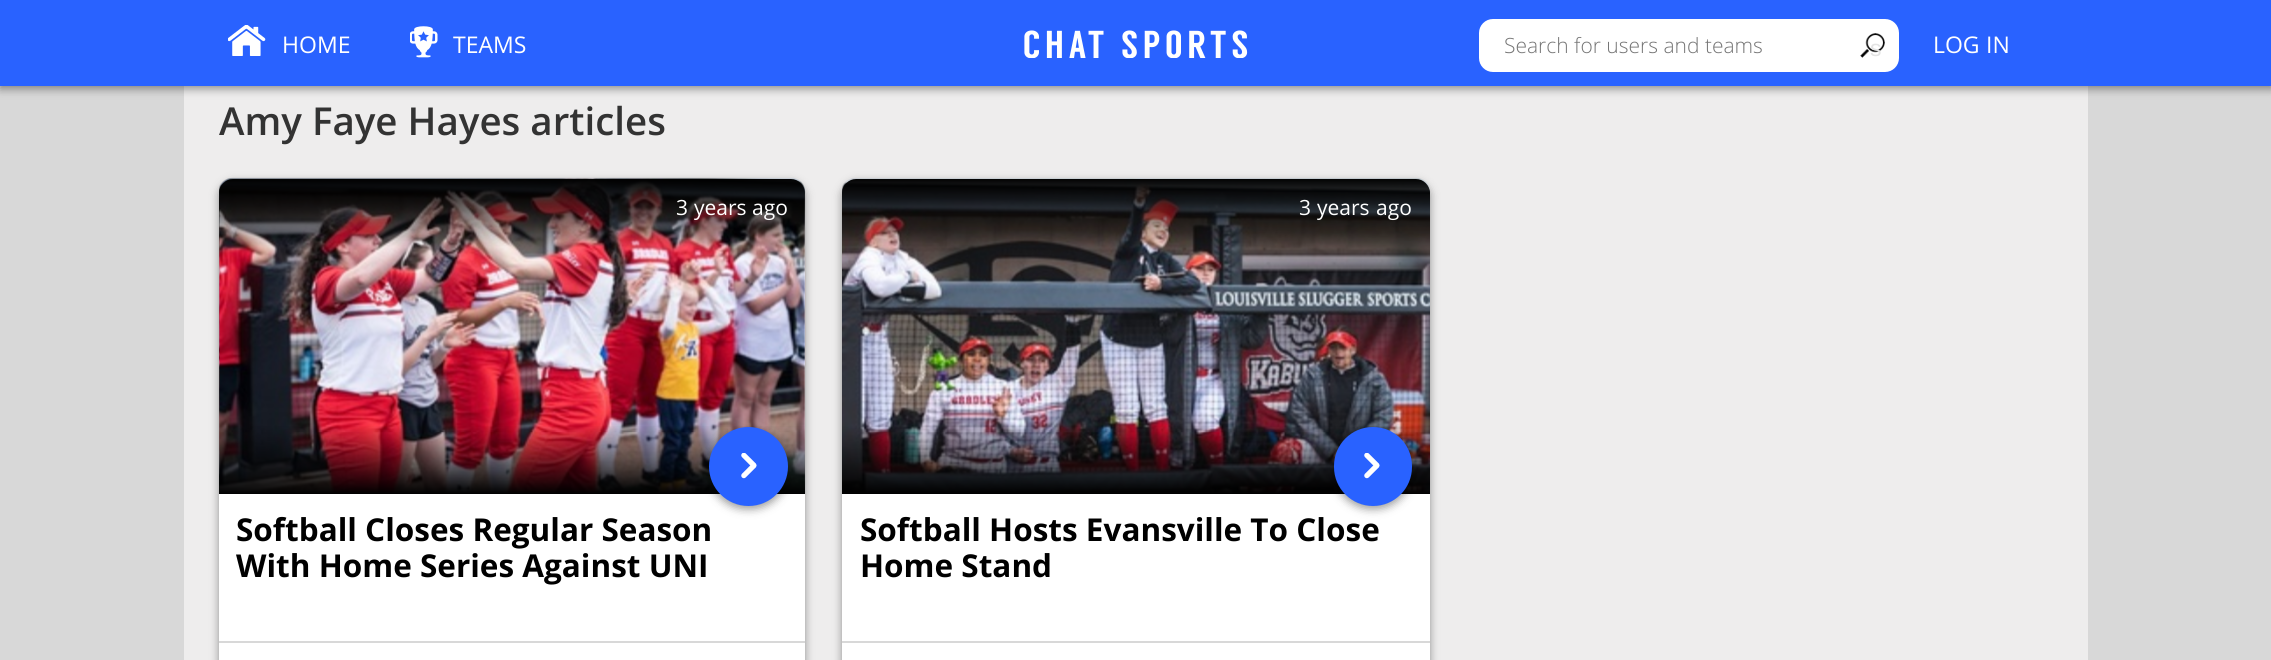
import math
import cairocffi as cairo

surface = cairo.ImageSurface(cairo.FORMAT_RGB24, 2271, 660)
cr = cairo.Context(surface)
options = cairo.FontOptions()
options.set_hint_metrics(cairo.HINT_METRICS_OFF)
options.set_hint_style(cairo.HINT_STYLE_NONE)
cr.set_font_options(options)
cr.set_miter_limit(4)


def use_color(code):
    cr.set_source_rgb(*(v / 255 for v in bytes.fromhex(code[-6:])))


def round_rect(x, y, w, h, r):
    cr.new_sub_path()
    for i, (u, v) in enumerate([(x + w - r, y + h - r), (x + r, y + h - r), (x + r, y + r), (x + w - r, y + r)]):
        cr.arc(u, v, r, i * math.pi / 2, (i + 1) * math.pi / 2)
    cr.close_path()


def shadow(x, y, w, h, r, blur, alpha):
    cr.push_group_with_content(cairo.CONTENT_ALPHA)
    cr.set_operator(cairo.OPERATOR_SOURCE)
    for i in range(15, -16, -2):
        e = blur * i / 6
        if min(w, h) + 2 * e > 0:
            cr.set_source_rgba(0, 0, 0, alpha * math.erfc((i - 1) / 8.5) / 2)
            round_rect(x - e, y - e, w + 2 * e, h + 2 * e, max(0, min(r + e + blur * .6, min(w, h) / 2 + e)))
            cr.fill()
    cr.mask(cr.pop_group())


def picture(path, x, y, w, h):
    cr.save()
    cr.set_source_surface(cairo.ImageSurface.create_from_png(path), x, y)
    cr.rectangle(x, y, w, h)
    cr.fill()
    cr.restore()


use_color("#d8d8d8")
cr.paint()
use_color("#eeeded")
cr.rectangle(184, 86, 1904, 574)
cr.fill()
use_color("#000000")
shadow(0, 4, 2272, 85, 0, 4.5, 0.4)
use_color("#2962ff")
cr.rectangle(0, 0, 2271, 86)
cr.fill()
picture("img1.png", 228, 25, 38, 31)
cr.select_font_face("Open Sans")
cr.set_font_size(23)
use_color("#ffffff")
cr.move_to(282, 53)
cr.show_text("HOME")
picture("img2.png", 410, 26, 28, 32)
cr.move_to(453, 53)
cr.show_text("TEAMS")
picture("img3.png", 1024, 30, 224, 28)
round_rect(1479, 19, 420, 53, 14)
cr.fill()
cr.select_font_face("Open Sans Light")
cr.set_font_size(21)
use_color("#757575")
cr.move_to(1504, 53)
cr.show_text("Search for users and teams")
picture("img4.png", 1860, 33, 25, 25)
cr.select_font_face("Liberation Sans")
cr.set_font_size(23)
use_color("#e3e3e3")
cr.move_to(1870, 56)
cr.show_text("s")
cr.select_font_face("Open Sans")
use_color("#ffffff")
cr.move_to(1933, 53)
cr.show_text("LOG")
cr.move_to(1986, 53)
cr.show_text("IN")
cr.select_font_face("Open Sans SemiBold")
cr.set_font_size(38.5)
use_color("#333333")
cr.move_to(219, 135)
cr.show_text("Amy Faye Hayes articles")
use_color("#000000")
shadow(219, 182, 586, 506, 14, 4.5, 0.4)
use_color("#ffffff")
round_rect(219, 179, 586, 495, 14)
cr.fill()
picture("img5.png", 219, 177, 587, 317)
gradient = cairo.LinearGradient(512, 178, 512, 247)
gradient.add_color_stop_rgba(0, 0, 0, 0, 1)
gradient.add_color_stop_rgba(1, 0, 0, 0, 0)
cr.set_source(gradient)
cr.new_path()
cr.move_to(233, 179)
cr.line_to(791, 179)
cr.curve_to(798.5, 179, 805, 185.5, 805, 193)
cr.line_to(805, 247)
cr.line_to(219, 247)
cr.line_to(219, 193)
cr.curve_to(219, 185.5, 225.5, 179, 233, 179)
cr.close_path()
cr.fill()
gradient = cairo.LinearGradient(512, 425, 512, 494)
gradient.add_color_stop_rgba(0, 0, 0, 0, 0)
gradient.add_color_stop_rgba(1, 0, 0, 0, 1)
cr.set_source(gradient)
cr.rectangle(219, 426, 586, 68)
cr.fill()
cr.select_font_face("Open Sans")
cr.set_font_size(21)
use_color("#ffffff")
cr.move_to(676, 215)
cr.show_text("3")
cr.move_to(694, 215)
cr.show_text("years")
cr.move_to(752, 215)
cr.show_text("ago")
use_color("#000000")
shadow(709, 431, 79, 78, 39, 4.5, 0.4)
use_color("#2962ff")
cr.arc(748.5, 466.5, 39.5, 0, 2 * math.pi)
cr.fill()
picture("img6.png", 741, 453, 16, 26)
cr.select_font_face("Open Sans", cairo.FONT_SLANT_NORMAL, cairo.FONT_WEIGHT_BOLD)
cr.set_font_size(31.5)
use_color("#000000")
cr.move_to(236, 541)
cr.show_text("Softball Closes Regular Season")
cr.move_to(236, 577)
cr.show_text("With Home Series Against UNI")
use_color("#d8d8d8")
cr.rectangle(219, 641, 586, 2)
cr.fill()
use_color("#000000")
shadow(842, 182, 588, 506, 14, 4.5, 0.4)
use_color("#ffffff")
round_rect(842, 179, 588, 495, 14)
cr.fill()
picture("img7.png", 842, 178, 588, 316)
gradient = cairo.LinearGradient(1136, 178, 1136, 247)
gradient.add_color_stop_rgba(0, 0, 0, 0, 1)
gradient.add_color_stop_rgba(1, 0, 0, 0, 0)
cr.set_source(gradient)
cr.new_path()
cr.move_to(856, 179)
cr.line_to(1416, 179)
cr.curve_to(1423.5, 179, 1430, 185.5, 1430, 193)
cr.line_to(1430, 247)
cr.line_to(842, 247)
cr.line_to(842, 193)
cr.curve_to(842, 185.5, 848.5, 179, 856, 179)
cr.close_path()
cr.fill()
gradient = cairo.LinearGradient(1136, 425, 1136, 494)
gradient.add_color_stop_rgba(0, 0, 0, 0, 0)
gradient.add_color_stop_rgba(1, 0, 0, 0, 1)
cr.set_source(gradient)
cr.rectangle(842, 426, 588, 68)
cr.fill()
cr.select_font_face("Open Sans")
cr.set_font_size(21)
use_color("#ffffff")
cr.move_to(1299, 215)
cr.show_text("3")
cr.move_to(1317, 215)
cr.show_text("years")
cr.move_to(1376, 215)
cr.show_text("ago")
use_color("#000000")
shadow(1334, 431, 78, 78, 39, 4.5, 0.4)
use_color("#2962ff")
round_rect(1334, 427, 78, 79, 39)
cr.fill()
picture("img6.png", 1364, 453, 16, 26)
cr.select_font_face("Open Sans", cairo.FONT_SLANT_NORMAL, cairo.FONT_WEIGHT_BOLD)
cr.set_font_size(31.5)
use_color("#000000")
cr.move_to(860, 541)
cr.show_text("Softball Hosts Evansville To Close")
cr.move_to(860, 577)
cr.show_text("Home Stand")
use_color("#d8d8d8")
cr.rectangle(842, 641, 588, 2)
cr.fill()
surface.write_to_png("result.png")
